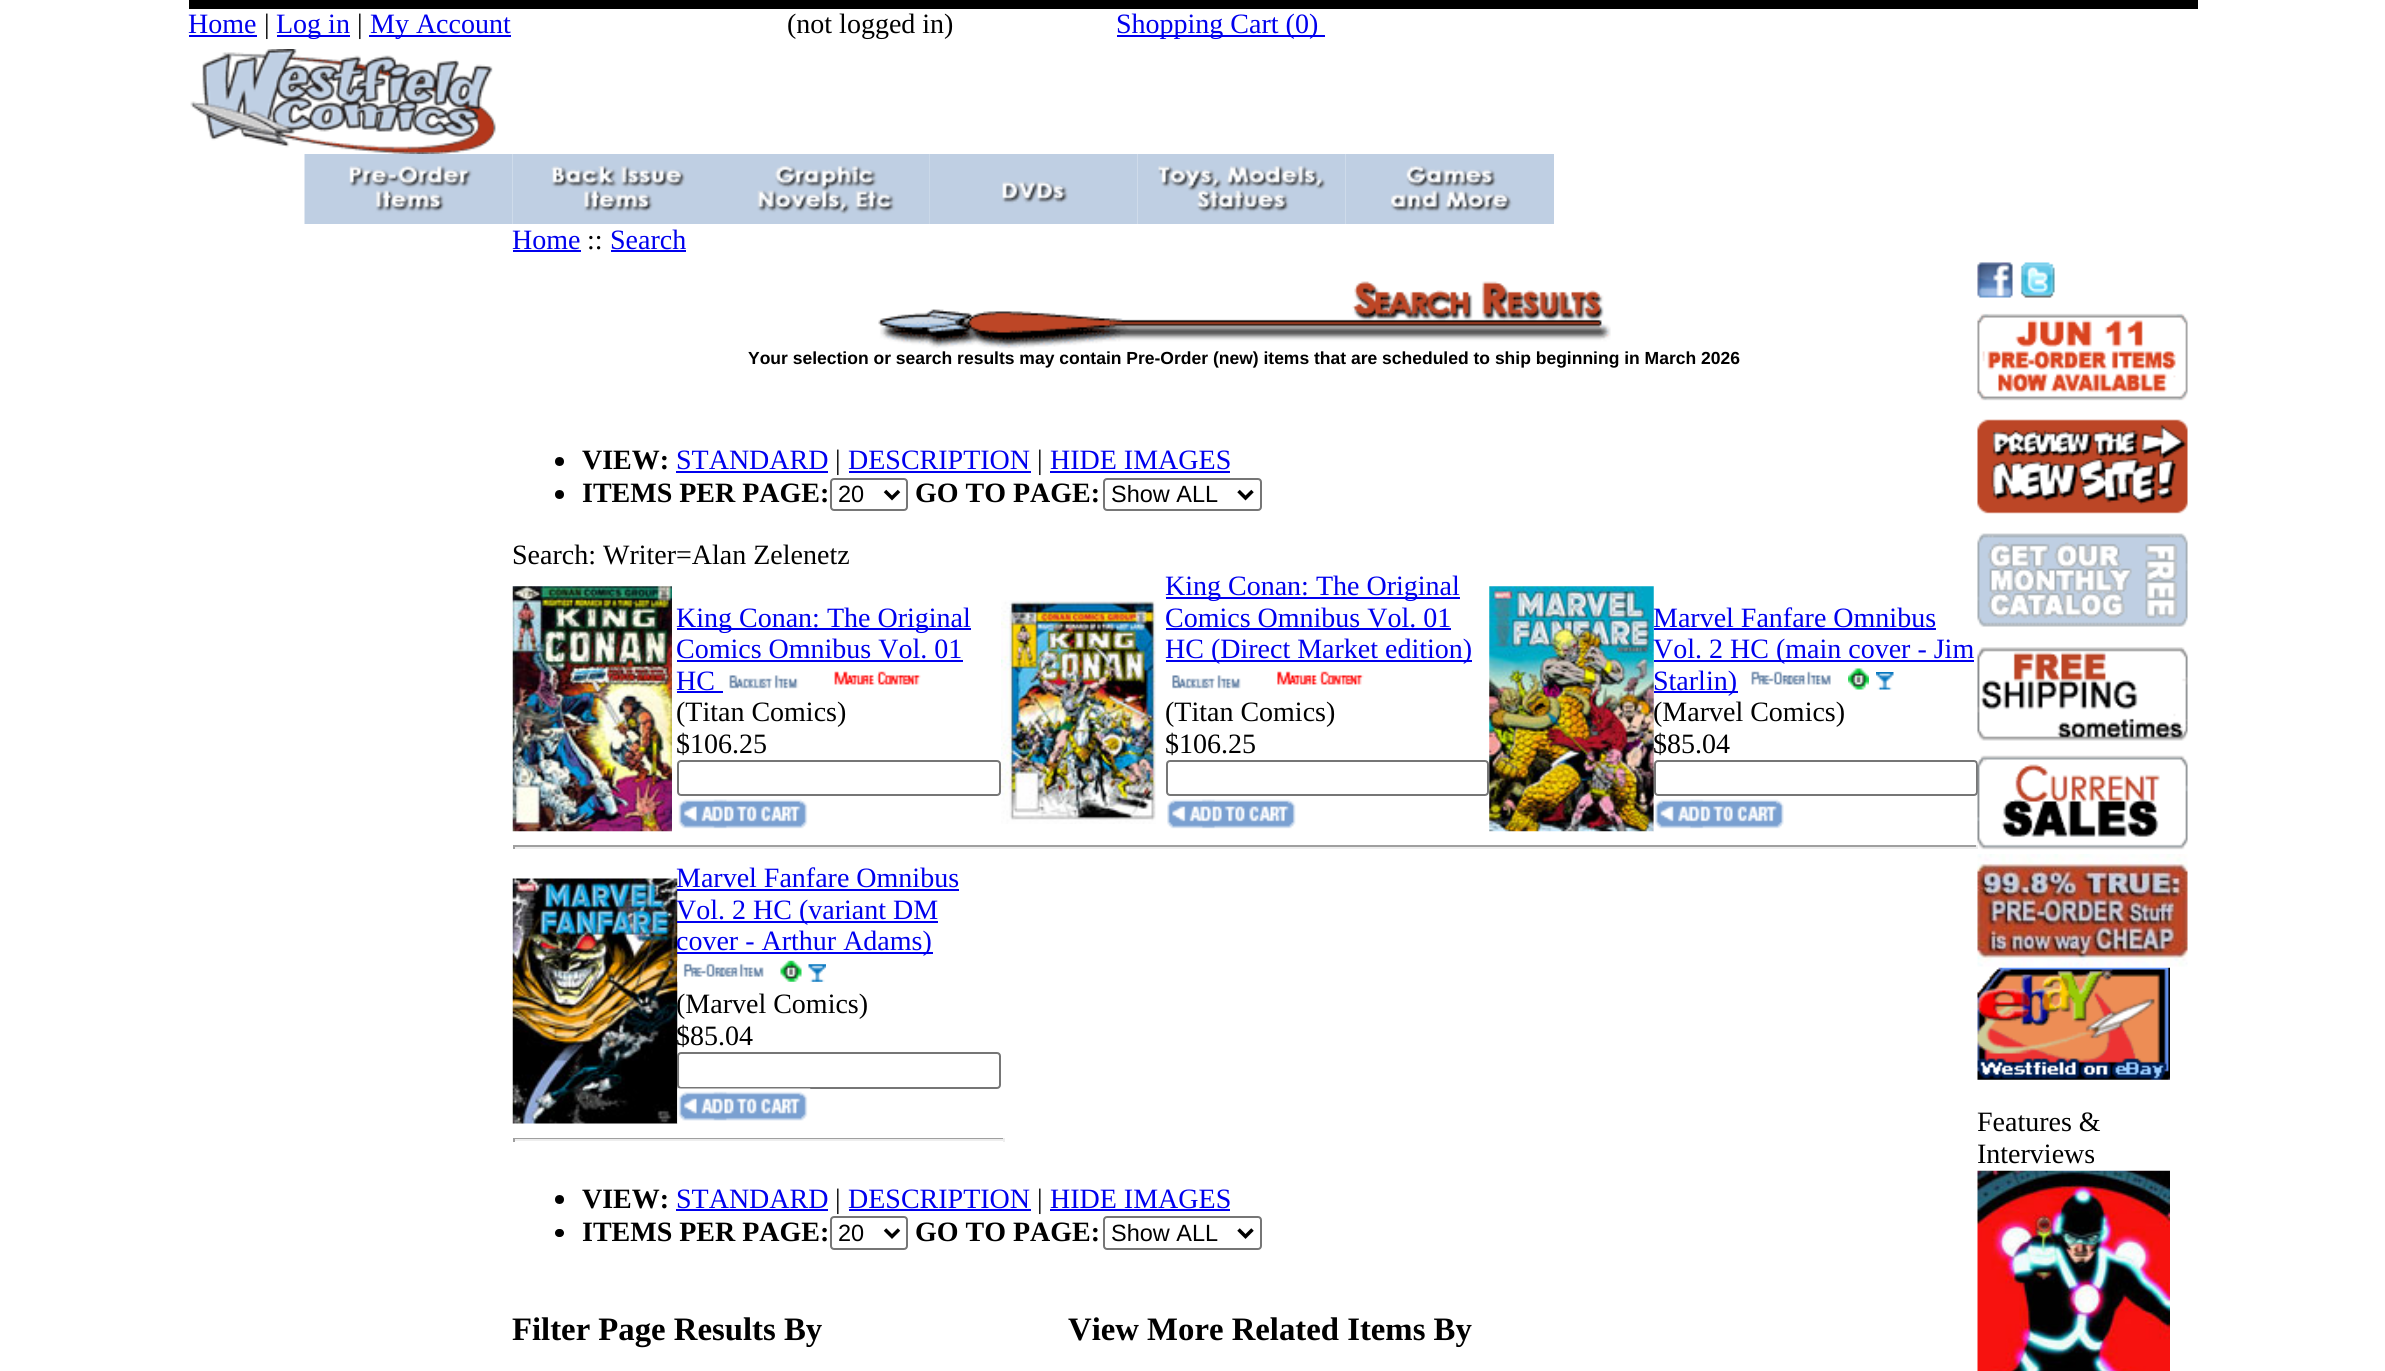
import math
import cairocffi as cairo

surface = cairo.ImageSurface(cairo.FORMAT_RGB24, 2385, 1371)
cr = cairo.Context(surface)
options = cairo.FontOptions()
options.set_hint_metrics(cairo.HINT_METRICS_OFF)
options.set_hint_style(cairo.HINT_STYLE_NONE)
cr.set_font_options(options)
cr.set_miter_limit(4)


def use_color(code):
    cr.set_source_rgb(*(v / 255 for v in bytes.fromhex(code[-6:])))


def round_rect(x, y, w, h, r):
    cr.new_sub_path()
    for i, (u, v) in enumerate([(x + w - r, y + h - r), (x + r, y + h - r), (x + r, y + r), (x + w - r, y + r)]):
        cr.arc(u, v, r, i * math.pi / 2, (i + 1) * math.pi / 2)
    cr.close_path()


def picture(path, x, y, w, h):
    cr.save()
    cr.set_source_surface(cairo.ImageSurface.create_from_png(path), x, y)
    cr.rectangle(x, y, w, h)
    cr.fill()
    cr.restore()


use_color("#ffffff")
cr.paint()
use_color("#000000")
cr.rectangle(189, 0, 2009, 9)
cr.fill()
cr.select_font_face("Liberation Serif")
cr.set_font_size(28)
use_color("#0000ee")
cr.move_to(188, 33)
cr.show_text("Home")
cr.rectangle(189, 35, 68, 2)
cr.fill()
use_color("#000000")
cr.move_to(264, 33)
cr.show_text("|")
use_color("#0000ee")
cr.rectangle(277, 35, 73, 2)
cr.fill()
cr.move_to(276, 33)
cr.show_text("Log in")
use_color("#000000")
cr.move_to(357, 33)
cr.show_text("|")
use_color("#0000ee")
cr.rectangle(369, 35, 142, 2)
cr.fill()
cr.move_to(370, 33)
cr.show_text("My Account")
use_color("#000000")
cr.move_to(787, 33)
cr.show_text("(not logged in)")
use_color("#0000ee")
cr.rectangle(1117, 35, 208, 2)
cr.fill()
cr.move_to(1116, 33)
cr.show_text("Shopping Cart (0)")
picture("img1.png", 190, 49, 306, 105)
picture("img2.png", 304, 154, 209, 70)
picture("img3.png", 513, 154, 208, 70)
picture("img4.png", 721, 154, 209, 70)
picture("img5.png", 929, 154, 209, 70)
picture("img6.png", 1137, 154, 209, 70)
picture("img7.png", 1346, 154, 208, 70)
cr.move_to(512, 249)
cr.show_text("Home")
cr.rectangle(513, 250, 68, 2)
cr.fill()
use_color("#000000")
cr.move_to(587, 249)
cr.show_text("::")
use_color("#0000ee")
cr.move_to(610, 249)
cr.show_text("Search")
cr.rectangle(611, 250, 75, 2)
cr.fill()
picture("img8.png", 878, 281, 733, 68)
cr.select_font_face("Liberation Sans", cairo.FONT_SLANT_NORMAL, cairo.FONT_WEIGHT_BOLD)
cr.set_font_size(17.5)
use_color("#000000")
cr.move_to(748, 364)
cr.show_text("Your selection or search results may contain Pre-Order (new) items that are scheduled to ship beginning in March 2026")
cr.new_path()
cr.arc(559.5, 461.5, 4.5, 0, 2 * math.pi)
cr.fill()
cr.select_font_face("Liberation Serif", cairo.FONT_SLANT_NORMAL, cairo.FONT_WEIGHT_BOLD)
cr.set_font_size(28)
cr.move_to(582, 469)
cr.show_text("VIEW:")
cr.select_font_face("Liberation Serif")
use_color("#0000ee")
cr.move_to(676, 469)
cr.show_text("STANDARD")
cr.rectangle(676, 471, 152, 2)
cr.fill()
use_color("#000000")
cr.move_to(835, 469)
cr.show_text("|")
use_color("#0000ee")
cr.move_to(848, 469)
cr.show_text("DESCRIPTION")
cr.rectangle(849, 471, 182, 2)
cr.fill()
use_color("#000000")
cr.move_to(1037, 469)
cr.show_text("|")
use_color("#0000ee")
cr.move_to(1050, 469)
cr.show_text("HIDE IMAGES")
cr.rectangle(1050, 471, 180, 2)
cr.fill()
use_color("#000000")
cr.arc(559.5, 494.5, 4.5, 0, 2 * math.pi)
cr.fill()
cr.select_font_face("Liberation Serif", cairo.FONT_SLANT_NORMAL, cairo.FONT_WEIGHT_BOLD)
cr.move_to(582, 502)
cr.show_text("ITEMS PER PAGE:")
round_rect(831, 479, 76, 31, 3)
use_color("#767676")
cr.stroke()
cr.new_path()
cr.move_to(885, 491)
cr.line_to(892, 498)
cr.line_to(899, 491)
use_color("#000000")
cr.set_line_width(3.5)
cr.stroke()
cr.select_font_face("Liberation Sans")
cr.set_font_size(23.5)
cr.move_to(838, 502)
cr.show_text("20")
cr.select_font_face("Liberation Serif", cairo.FONT_SLANT_NORMAL, cairo.FONT_WEIGHT_BOLD)
cr.set_font_size(28)
cr.move_to(915, 502)
cr.show_text("GO TO PAGE:")
round_rect(1104, 479, 157, 31, 3)
use_color("#767676")
cr.set_line_width(2)
cr.stroke()
cr.new_path()
cr.move_to(1238.5, 491)
cr.line_to(1245.5, 498)
cr.line_to(1252.5, 491)
use_color("#000000")
cr.set_line_width(3.5)
cr.stroke()
cr.select_font_face("Liberation Sans")
cr.set_font_size(23.5)
cr.move_to(1111, 502)
cr.show_text("Show ALL")
cr.select_font_face("Liberation Serif")
cr.set_font_size(28)
cr.move_to(512, 564)
cr.show_text("Search: Writer=Alan Zelenetz")
picture("img9.png", 512, 586, 160, 246)
use_color("#0000ee")
cr.rectangle(677, 628, 294, 2)
cr.fill()
cr.move_to(676, 627)
cr.show_text("King Conan: The Original")
cr.move_to(676, 658)
cr.show_text("Comics Omnibus Vol. 01")
cr.rectangle(677, 660, 286, 2)
cr.fill()
cr.move_to(676, 690)
cr.show_text("HC")
cr.rectangle(677, 691, 46, 2)
cr.fill()
picture("img10.png", 729, 675, 70, 14)
picture("img11.png", 834, 671, 87, 14)
use_color("#000000")
cr.move_to(676, 721)
cr.show_text("(Titan Comics)")
cr.move_to(676, 753)
cr.show_text("$106.25")
round_rect(678, 761, 322, 34, 3)
use_color("#767676")
cr.set_line_width(2)
cr.stroke()
picture("img12.png", 678, 799, 130, 30)
picture("img13.png", 1001, 600, 155, 224)
use_color("#0000ee")
cr.rectangle(1166, 597, 294, 2)
cr.fill()
cr.move_to(1165, 595)
cr.show_text("King Conan: The Original")
cr.move_to(1165, 627)
cr.show_text("Comics Omnibus Vol. 01")
cr.rectangle(1166, 628, 285, 2)
cr.fill()
cr.rectangle(1166, 660, 306, 2)
cr.fill()
cr.move_to(1165, 658)
cr.show_text("HC (Direct Market edition)")
picture("img14.png", 1172, 675, 69, 14)
picture("img15.png", 1277, 671, 87, 14)
use_color("#000000")
cr.move_to(1165, 721)
cr.show_text("(Titan Comics)")
cr.move_to(1165, 753)
cr.show_text("$106.25")
round_rect(1167, 761, 321, 34, 3)
use_color("#767676")
cr.stroke()
picture("img16.png", 1167, 799, 129, 30)
picture("img17.png", 1489, 586, 165, 246)
use_color("#0000ee")
cr.move_to(1653, 627)
cr.show_text("Marvel Fanfare Omnibus")
cr.rectangle(1654, 628, 282, 2)
cr.fill()
cr.rectangle(1654, 660, 320, 2)
cr.fill()
cr.move_to(1653, 658)
cr.show_text("Vol. 2 HC (main cover - Jim")
cr.rectangle(1654, 691, 84, 2)
cr.fill()
cr.move_to(1653, 690)
cr.show_text("Starlin)")
picture("img18.png", 1751, 671, 80, 14)
picture("img19.png", 1848, 668, 21, 22)
picture("img20.png", 1876, 672, 18, 18)
use_color("#000000")
cr.move_to(1653, 721)
cr.show_text("(Marvel Comics)")
cr.move_to(1653, 753)
cr.show_text("$85.04")
round_rect(1655, 761, 322, 34, 3)
use_color("#767676")
cr.stroke()
picture("img21.png", 1653, 796, 131, 35)
picture("img33.png", 1977, 755, 211, 95)
use_color("#9f9f9f")
cr.rectangle(513, 845, 1465, 2)
cr.fill()
use_color("#eeeeee")
cr.rectangle(1976, 845, 2, 4)
cr.fill()
cr.rectangle(513, 847, 1465, 2)
cr.fill()
use_color("#9f9f9f")
cr.rectangle(513, 845, 2, 4)
cr.fill()
picture("img22.png", 512, 878, 166, 246)
use_color("#0000ee")
cr.move_to(676, 887)
cr.show_text("Marvel Fanfare Omnibus")
cr.rectangle(677, 889, 282, 2)
cr.fill()
cr.rectangle(677, 921, 261, 2)
cr.fill()
cr.move_to(676, 919)
cr.show_text("Vol. 2 HC (variant DM")
cr.rectangle(677, 952, 256, 2)
cr.fill()
cr.move_to(676, 950)
cr.show_text("cover - Arthur Adams)")
picture("img23.png", 677, 960, 87, 22)
picture("img24.png", 780, 960, 22, 22)
picture("img25.png", 808, 964, 18, 18)
use_color("#000000")
cr.move_to(676, 1013)
cr.show_text("(Marvel Comics)")
cr.move_to(676, 1045)
cr.show_text("$85.04")
use_color("#ffffff")
round_rect(678, 1053, 322, 35, 3)
cr.fill_preserve()
use_color("#767676")
cr.stroke()
picture("img26.png", 677, 1088, 134, 36)
use_color("#9f9f9f")
cr.rectangle(513, 1138, 492, 1)
cr.fill()
use_color("#eeeeee")
cr.rectangle(1003, 1138, 2, 4)
cr.fill()
cr.rectangle(513, 1139, 492, 2)
cr.fill()
use_color("#9f9f9f")
cr.rectangle(513, 1138, 2, 4)
cr.fill()
use_color("#000000")
cr.arc(559.5, 1199.5, 4.5, 0, 2 * math.pi)
cr.fill()
cr.select_font_face("Liberation Serif", cairo.FONT_SLANT_NORMAL, cairo.FONT_WEIGHT_BOLD)
cr.move_to(582, 1208)
cr.show_text("VIEW:")
cr.select_font_face("Liberation Serif")
use_color("#0000ee")
cr.move_to(676, 1208)
cr.show_text("STANDARD")
cr.rectangle(676, 1209, 152, 2)
cr.fill()
use_color("#000000")
cr.move_to(835, 1208)
cr.show_text("|")
use_color("#0000ee")
cr.move_to(848, 1208)
cr.show_text("DESCRIPTION")
cr.rectangle(849, 1209, 182, 2)
cr.fill()
use_color("#000000")
cr.move_to(1037, 1208)
cr.show_text("|")
use_color("#0000ee")
cr.move_to(1050, 1208)
cr.show_text("HIDE IMAGES")
cr.rectangle(1050, 1209, 180, 2)
cr.fill()
use_color("#000000")
round_rect(555, 1229, 9, 8, 4)
cr.fill()
cr.select_font_face("Liberation Serif", cairo.FONT_SLANT_NORMAL, cairo.FONT_WEIGHT_BOLD)
cr.move_to(582, 1241)
cr.show_text("ITEMS PER PAGE:")
round_rect(831, 1217, 76, 32, 3)
use_color("#767676")
cr.stroke()
cr.new_path()
cr.move_to(885, 1229.5)
cr.line_to(892, 1236.5)
cr.line_to(899, 1229.5)
use_color("#000000")
cr.set_line_width(3.5)
cr.stroke()
cr.select_font_face("Liberation Sans")
cr.set_font_size(23.5)
cr.move_to(838, 1241)
cr.show_text("20")
cr.select_font_face("Liberation Serif", cairo.FONT_SLANT_NORMAL, cairo.FONT_WEIGHT_BOLD)
cr.set_font_size(28)
cr.move_to(915, 1241)
cr.show_text("GO TO PAGE:")
round_rect(1104, 1217, 157, 32, 3)
use_color("#767676")
cr.set_line_width(2)
cr.stroke()
cr.new_path()
cr.move_to(1238.5, 1229.5)
cr.line_to(1245.5, 1236.5)
cr.line_to(1252.5, 1229.5)
use_color("#000000")
cr.set_line_width(3.5)
cr.stroke()
cr.select_font_face("Liberation Sans")
cr.set_font_size(23.5)
cr.move_to(1111, 1241)
cr.show_text("Show ALL")
cr.select_font_face("Liberation Serif", cairo.FONT_SLANT_NORMAL, cairo.FONT_WEIGHT_BOLD)
cr.set_font_size(32.75)
cr.move_to(512, 1340)
cr.show_text("Filter Page Results By")
cr.move_to(1068, 1340)
cr.show_text("View More Related Items By")
picture("img27.png", 1977, 262, 36, 36)
picture("img28.png", 2020, 262, 35, 36)
picture("img29.png", 1977, 313, 211, 88)
picture("img30.png", 1977, 419, 211, 95)
picture("img31.png", 1977, 533, 211, 94)
picture("img32.png", 1977, 647, 211, 94)
picture("img34.png", 1977, 854, 211, 113)
picture("img35.png", 1977, 967, 193, 113)
cr.select_font_face("Liberation Serif")
cr.set_font_size(28)
cr.move_to(1977, 1131)
cr.show_text("Features &")
cr.move_to(1977, 1163)
cr.show_text("Interviews")
picture("img36.png", 1977, 1170, 193, 201)
surface.write_to_png("result.png")
